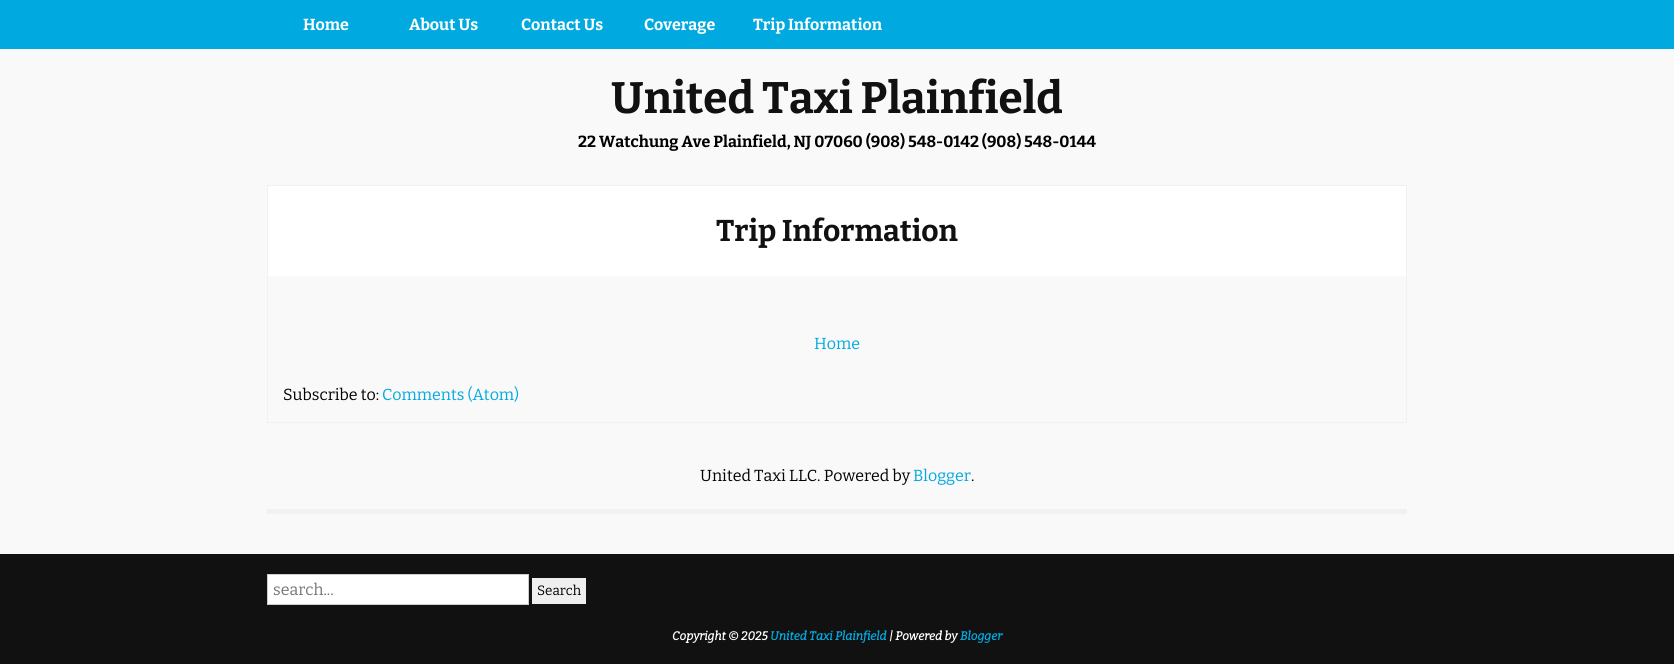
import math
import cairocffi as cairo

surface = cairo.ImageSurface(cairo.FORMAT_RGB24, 1674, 664)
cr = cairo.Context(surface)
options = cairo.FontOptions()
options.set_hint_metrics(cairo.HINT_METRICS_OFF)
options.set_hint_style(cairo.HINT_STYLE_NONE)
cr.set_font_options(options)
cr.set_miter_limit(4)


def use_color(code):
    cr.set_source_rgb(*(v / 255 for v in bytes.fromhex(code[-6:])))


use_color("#f9f9f9")
cr.paint()
use_color("#00a9e0")
cr.rectangle(0, 0, 1674, 49)
cr.fill()
cr.select_font_face("Bitter", cairo.FONT_SLANT_NORMAL, cairo.FONT_WEIGHT_BOLD)
cr.set_font_size(16)
use_color("#ffffff")
cr.move_to(303, 30)
cr.show_text("Home")
cr.move_to(409, 30)
cr.show_text("About Us")
cr.move_to(521, 30)
cr.show_text("Contact Us")
cr.move_to(644, 30)
cr.show_text("Coverage")
cr.move_to(753, 30)
cr.show_text("Trip Information")
cr.set_font_size(44)
use_color("#111111")
cr.move_to(611, 113)
cr.show_text("United Taxi Plainfield")
cr.set_font_size(16)
use_color("#000000")
cr.move_to(578, 147)
cr.show_text("22 Watchung Ave Plainfield, NJ 07060 (908) 548-0142 (908) 548-0144")
cr.rectangle(267.5, 185.5, 1139, 237)
use_color("#f1f1f1")
cr.set_line_width(1)
cr.stroke()
use_color("#ffffff")
cr.rectangle(268, 186, 1138, 90)
cr.fill()
cr.set_font_size(30)
use_color("#111111")
cr.move_to(716, 241)
cr.show_text("Trip Information")
cr.select_font_face("Bitter")
cr.set_font_size(16)
use_color("#00a9e0")
cr.move_to(814, 349)
cr.show_text("Home")
use_color("#000000")
cr.move_to(283, 400)
cr.show_text("Subscribe to:")
use_color("#00a9e0")
cr.move_to(382, 400)
cr.show_text("Comments (Atom)")
use_color("#f1f1f1")
cr.rectangle(267, 509, 1140, 5)
cr.fill()
use_color("#000000")
cr.move_to(700, 481)
cr.show_text("United Taxi LLC. Powered by")
use_color("#00a9e0")
cr.move_to(913, 481)
cr.show_text("Blogger")
use_color("#000000")
cr.move_to(971, 481)
cr.show_text(".")
use_color("#111111")
cr.rectangle(0, 554, 1674, 110)
cr.fill()
use_color("#ffffff")
cr.rectangle(267.5, 574.5, 261, 30)
cr.fill_preserve()
use_color("#cccccc")
cr.stroke()
use_color("#757575")
cr.move_to(273, 595)
cr.show_text("search...")
use_color("#efefef")
cr.rectangle(532, 578, 54, 26)
cr.fill()
cr.set_font_size(13.5)
use_color("#000000")
cr.move_to(537, 595)
cr.show_text("Search")
cr.select_font_face("Bitter", cairo.FONT_SLANT_ITALIC, cairo.FONT_WEIGHT_BOLD)
cr.set_font_size(12)
use_color("#ffffff")
cr.move_to(672, 640)
cr.show_text("Copyright © 2025")
use_color("#00a9e0")
cr.move_to(770, 640)
cr.show_text("United Taxi Plainfield")
use_color("#ffffff")
cr.move_to(889, 640)
cr.show_text("| Powered by")
use_color("#00a9e0")
cr.move_to(960, 640)
cr.show_text("Blogger")
surface.write_to_png("result.png")
